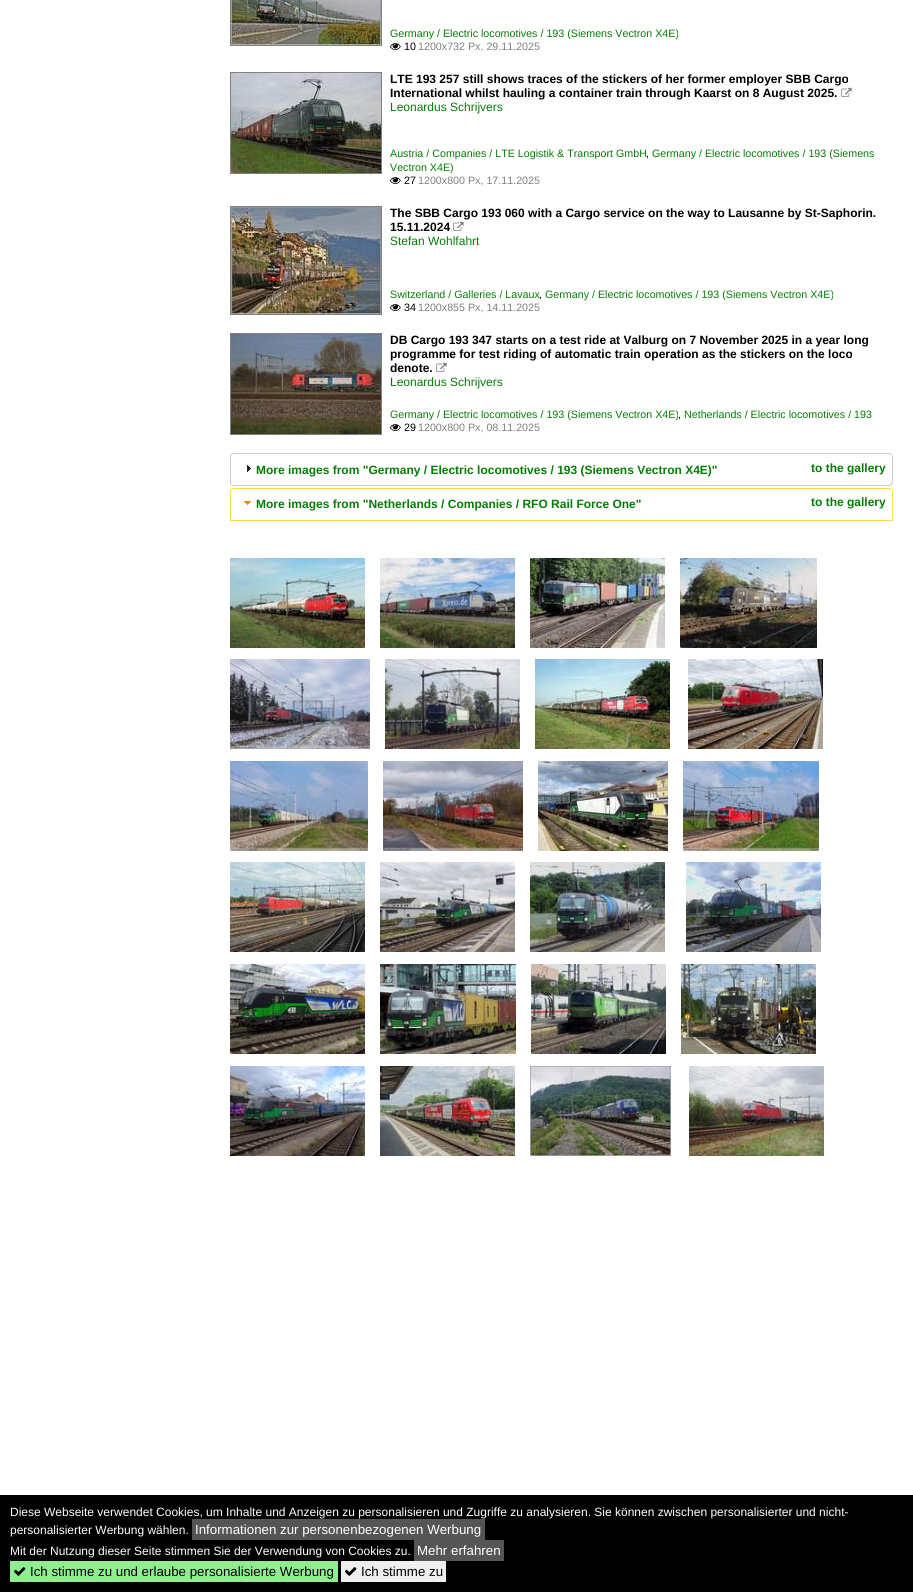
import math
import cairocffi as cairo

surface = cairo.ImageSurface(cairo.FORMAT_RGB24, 913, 1592)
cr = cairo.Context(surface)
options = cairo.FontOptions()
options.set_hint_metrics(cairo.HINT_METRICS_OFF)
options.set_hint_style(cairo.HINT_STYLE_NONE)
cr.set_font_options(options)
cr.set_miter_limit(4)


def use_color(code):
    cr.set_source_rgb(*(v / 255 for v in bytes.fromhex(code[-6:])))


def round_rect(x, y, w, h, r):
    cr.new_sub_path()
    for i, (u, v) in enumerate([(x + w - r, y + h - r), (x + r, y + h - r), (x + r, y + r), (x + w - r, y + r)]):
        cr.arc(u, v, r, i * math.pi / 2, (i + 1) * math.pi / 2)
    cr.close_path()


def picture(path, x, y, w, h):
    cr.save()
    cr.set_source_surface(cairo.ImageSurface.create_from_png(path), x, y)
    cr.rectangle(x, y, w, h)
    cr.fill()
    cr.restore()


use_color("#ffffff")
cr.paint()
cr.rectangle(230.5, -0.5, 151, 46)
use_color("#808080")
cr.set_line_width(1)
cr.stroke()
picture("img1.png", 231, 0, 150, 45)
cr.select_font_face("Liberation Sans")
cr.set_font_size(10.7)
use_color("#057d05")
cr.move_to(390, 37)
cr.show_text("Germany / Electric locomotives / 193 (Siemens Vectron X4E)")
picture("img2.png", 390, 43, 11, 7)
use_color("#000000")
cr.move_to(404, 50)
cr.show_text("10")
use_color("#808080")
cr.move_to(418, 50)
cr.show_text("1200x732 Px, 29.11.2025")
cr.rectangle(230.5, 72.5, 151, 101)
cr.stroke()
picture("img3.png", 231, 73, 150, 100)
cr.select_font_face("Liberation Sans", cairo.FONT_SLANT_NORMAL, cairo.FONT_WEIGHT_BOLD)
cr.set_font_size(12)
use_color("#000000")
cr.move_to(390, 83)
cr.show_text("LTE 193 257 still shows traces of the stickers of her former employer SBB Cargo")
cr.move_to(390, 97)
cr.show_text("International whilst hauling a container train through Kaarst on 8 August 2025.")
picture("img4.png", 841, 87, 11, 10)
cr.select_font_face("Liberation Sans")
use_color("#057d05")
cr.move_to(390, 111)
cr.show_text("Leonardus Schrijvers")
cr.set_font_size(10.7)
cr.move_to(390, 157)
cr.show_text("Austria / Companies / LTE Logistik & Transport GmbH")
use_color("#000000")
cr.move_to(646, 157)
cr.show_text(",")
use_color("#057d05")
cr.move_to(652, 157)
cr.show_text("Germany / Electric locomotives / 193 (Siemens")
cr.move_to(390, 171)
cr.show_text("Vectron X4E)")
picture("img2.png", 390, 177, 11, 7)
use_color("#000000")
cr.move_to(404, 184)
cr.show_text("27")
use_color("#808080")
cr.move_to(418, 184)
cr.show_text("1200x800 Px, 17.11.2025")
cr.rectangle(230.5, 206.5, 151, 108)
cr.stroke()
picture("img5.png", 231, 207, 150, 107)
cr.select_font_face("Liberation Sans", cairo.FONT_SLANT_NORMAL, cairo.FONT_WEIGHT_BOLD)
cr.set_font_size(12)
use_color("#000000")
cr.move_to(390, 217)
cr.show_text("The SBB Cargo 193 060 with a Cargo service on the way to Lausanne by St-Saphorin.")
cr.move_to(390, 231)
cr.show_text("15.11.2024")
picture("img4.png", 453, 221, 11, 10)
cr.select_font_face("Liberation Sans")
use_color("#057d05")
cr.move_to(390, 245)
cr.show_text("Stefan Wohlfahrt")
cr.set_font_size(10.7)
cr.move_to(390, 298)
cr.show_text("Switzerland / Galleries / Lavaux")
use_color("#000000")
cr.move_to(539, 298)
cr.show_text(",")
use_color("#057d05")
cr.move_to(545, 298)
cr.show_text("Germany / Electric locomotives / 193 (Siemens Vectron X4E)")
picture("img2.png", 390, 304, 11, 7)
use_color("#000000")
cr.move_to(404, 311)
cr.show_text("34")
use_color("#808080")
cr.move_to(418, 311)
cr.show_text("1200x855 Px, 14.11.2025")
cr.rectangle(230.5, 333.5, 151, 101)
cr.stroke()
picture("img6.png", 231, 334, 150, 100)
cr.select_font_face("Liberation Sans", cairo.FONT_SLANT_NORMAL, cairo.FONT_WEIGHT_BOLD)
cr.set_font_size(12)
use_color("#000000")
cr.move_to(390, 344)
cr.show_text("DB Cargo 193 347 starts on a test ride at Valburg on 7 November 2025 in a year long")
cr.move_to(390, 358)
cr.show_text("programme for test riding of automatic train operation as the stickers on the loco")
cr.move_to(390, 372)
cr.show_text("denote.")
picture("img4.png", 436, 362, 11, 10)
cr.select_font_face("Liberation Sans")
use_color("#057d05")
cr.move_to(390, 386)
cr.show_text("Leonardus Schrijvers")
cr.set_font_size(10.7)
cr.move_to(390, 418)
cr.show_text("Germany / Electric locomotives / 193 (Siemens Vectron X4E)")
use_color("#000000")
cr.move_to(678, 418)
cr.show_text(",")
use_color("#057d05")
cr.move_to(684, 418)
cr.show_text("Netherlands / Electric locomotives / 193")
picture("img2.png", 390, 424, 11, 7)
use_color("#000000")
cr.move_to(404, 431)
cr.show_text("29")
use_color("#808080")
cr.move_to(418, 431)
cr.show_text("1200x800 Px, 08.11.2025")
round_rect(230.5, 453.5, 662, 32, 3.5)
use_color("#cccccc")
cr.stroke()
picture("img7.png", 247, 465, 4, 7)
cr.select_font_face("Liberation Sans", cairo.FONT_SLANT_NORMAL, cairo.FONT_WEIGHT_BOLD)
cr.set_font_size(12)
use_color("#057d05")
cr.move_to(256, 474)
cr.show_text("More images from \"Germany / Electric locomotives / 193 (Siemens Vectron X4E)\"")
cr.move_to(811, 472)
cr.show_text("to the gallery")
cr.new_path()
cr.move_to(234, 488.5)
cr.line_to(889, 488.5)
cr.curve_to(891, 488.5, 892.5, 490, 892.5, 492)
cr.line_to(892.5, 520.5)
cr.line_to(230.5, 520.5)
cr.line_to(230.5, 492)
cr.curve_to(230.5, 490, 232, 488.5, 234, 488.5)
cr.close_path()
use_color("#fbd850")
cr.stroke()
picture("img8.png", 244, 501, 7, 4)
use_color("#057d05")
cr.move_to(256, 508)
cr.show_text("More images from \"Netherlands / Companies / RFO Rail Force One\"")
cr.move_to(811, 506)
cr.show_text("to the gallery")
picture("img9.png", 230, 558, 135, 90)
picture("img10.png", 380, 558, 135, 90)
picture("img11.png", 530, 558, 135, 90)
picture("img12.png", 680, 558, 137, 90)
picture("img13.png", 230, 659, 140, 90)
picture("img14.png", 385, 659, 135, 90)
picture("img15.png", 535, 659, 135, 90)
picture("img16.png", 688, 659, 135, 90)
picture("img17.png", 230, 761, 138, 90)
picture("img18.png", 383, 761, 140, 90)
picture("img19.png", 538, 761, 130, 90)
picture("img20.png", 683, 761, 136, 90)
picture("img21.png", 230, 862, 135, 90)
picture("img22.png", 380, 862, 135, 90)
picture("img23.png", 530, 862, 135, 90)
picture("img24.png", 686, 862, 135, 90)
picture("img25.png", 230, 964, 135, 90)
picture("img26.png", 380, 964, 136, 90)
picture("img27.png", 531, 964, 135, 90)
picture("img28.png", 681, 964, 135, 90)
picture("img29.png", 230, 1066, 135, 90)
picture("img30.png", 380, 1066, 135, 90)
picture("img31.png", 530, 1066, 141, 90)
picture("img32.png", 689, 1066, 135, 90)
use_color("#000000")
cr.rectangle(0, 1495, 913, 97)
cr.fill()
cr.select_font_face("Liberation Sans")
use_color("#ffffff")
cr.move_to(10, 1516)
cr.show_text("Diese Webseite verwendet Cookies, um Inhalte und Anzeigen zu personalisieren und Zugriffe zu analysieren. Sie können zwischen personalisierter und nicht-")
cr.move_to(10, 1534)
cr.show_text("personalisierter Werbung wählen.")
use_color("#555555")
cr.rectangle(192, 1519, 293, 21)
cr.fill()
cr.set_font_size(13.3)
use_color("#ffffff")
cr.move_to(195, 1534)
cr.show_text("Informationen zur personenbezogenen Werbung")
cr.set_font_size(12)
cr.move_to(10, 1555)
cr.show_text("Mit der Nutzung dieser Seite stimmen Sie der Verwendung von Cookies zu.")
use_color("#555555")
cr.rectangle(414, 1540, 90, 21)
cr.fill()
cr.set_font_size(13.3)
use_color("#ffffff")
cr.move_to(417, 1555)
cr.show_text("Mehr erfahren")
use_color("#90ee90")
cr.rectangle(10, 1561, 328, 21)
cr.fill()
picture("img33.png", 13, 1567, 13, 9)
use_color("#000000")
cr.move_to(30, 1576)
cr.show_text("Ich stimme zu und erlaube personalisierte Werbung")
use_color("#efefef")
cr.rectangle(341, 1561, 105, 21)
cr.fill()
picture("img34.png", 344, 1567, 13, 9)
use_color("#000000")
cr.move_to(361, 1576)
cr.show_text("Ich stimme zu")
surface.write_to_png("result.png")
